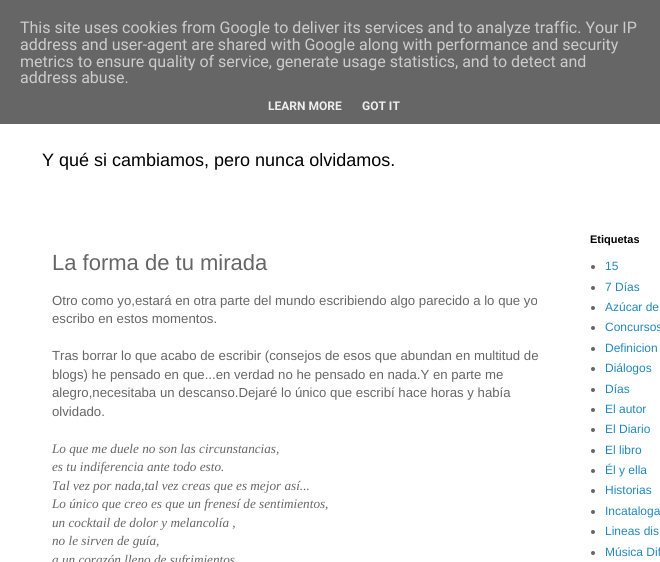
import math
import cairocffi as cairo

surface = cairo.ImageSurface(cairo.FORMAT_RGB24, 660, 562)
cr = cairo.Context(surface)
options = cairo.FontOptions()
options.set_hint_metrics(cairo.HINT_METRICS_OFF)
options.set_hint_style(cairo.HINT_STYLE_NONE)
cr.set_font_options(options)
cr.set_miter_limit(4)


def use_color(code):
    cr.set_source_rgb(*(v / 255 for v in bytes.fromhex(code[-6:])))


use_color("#ffffff")
cr.paint()
use_color("#666666")
cr.rectangle(0, 0, 660, 124)
cr.fill()
cr.select_font_face("Roboto")
cr.set_font_size(16)
use_color("#cccccc")
cr.move_to(20, 33)
cr.show_text("This site uses cookies from Google to deliver its services and to analyze traffic. Your IP")
cr.move_to(20, 50)
cr.show_text("address and user-agent are shared with Google along with performance and security")
cr.move_to(20, 67)
cr.show_text("metrics to ensure quality of service, generate usage statistics, and to detect and")
cr.move_to(20, 83)
cr.show_text("address abuse.")
cr.select_font_face("Roboto", cairo.FONT_SLANT_NORMAL, cairo.FONT_WEIGHT_BOLD)
cr.set_font_size(12)
use_color("#eeeeee")
cr.move_to(268, 110)
cr.show_text("LEARN MORE")
cr.move_to(362, 110)
cr.show_text("GOT IT")
cr.select_font_face("Liberation Sans")
cr.set_font_size(18)
use_color("#000000")
cr.move_to(42, 166)
cr.show_text("Y qué si cambiamos, pero nunca olvidamos.")
cr.set_font_size(22)
use_color("#666666")
cr.move_to(52, 270)
cr.show_text("La forma de tu mirada")
cr.set_font_size(13.2)
cr.move_to(52, 305)
cr.show_text("Otro como yo,estará en otra parte del mundo escribiendo algo parecido a lo que yo")
cr.move_to(52, 323)
cr.show_text("escribo en estos momentos.")
cr.move_to(52, 360)
cr.show_text("Tras borrar lo que acabo de escribir (consejos de esos que abundan en multitud de")
cr.move_to(52, 379)
cr.show_text("blogs) he pensado en que...en verdad no he pensado en nada.Y en parte me")
cr.move_to(52, 397)
cr.show_text("alegro,necesitaba un descanso.Dejaré lo único que escribí hace horas y había")
cr.move_to(52, 416)
cr.show_text("olvidado.")
cr.select_font_face("Liberation Serif", cairo.FONT_SLANT_ITALIC)
cr.move_to(52, 453)
cr.show_text("Lo que me duele no son las circunstancias,")
cr.move_to(52, 471)
cr.show_text("es tu indiferencia ante todo esto.")
cr.move_to(52, 490)
cr.show_text("Tal vez por nada,tal vez creas que es mejor así...")
cr.move_to(52, 508)
cr.show_text("Lo único que creo es que un frenesí de sentimientos,")
cr.move_to(52, 527)
cr.show_text("un cocktail de dolor y melancolía ,")
cr.move_to(52, 545)
cr.show_text("no le sirven de guía,")
cr.move_to(52, 564)
cr.show_text("a un corazón lleno de sufrimientos")
cr.select_font_face("Liberation Sans", cairo.FONT_SLANT_NORMAL, cairo.FONT_WEIGHT_BOLD)
cr.set_font_size(11)
use_color("#000000")
cr.move_to(590, 243)
cr.show_text("Etiquetas")
use_color("#666666")
cr.new_path()
cr.arc(593, 267, 2, 0, 2 * math.pi)
cr.fill()
cr.select_font_face("Liberation Sans")
cr.set_font_size(12)
use_color("#2288bb")
cr.move_to(605, 270)
cr.show_text("15")
use_color("#666666")
cr.new_path()
cr.arc(593, 288, 2, 0, 2 * math.pi)
cr.fill()
use_color("#2288bb")
cr.move_to(605, 291)
cr.show_text("7 Días")
use_color("#666666")
cr.new_path()
cr.arc(593, 308, 2, 0, 2 * math.pi)
cr.fill()
use_color("#2288bb")
cr.move_to(605, 311)
cr.show_text("Azúcar de")
use_color("#666666")
cr.new_path()
cr.arc(593, 328, 2, 0, 2 * math.pi)
cr.fill()
use_color("#2288bb")
cr.move_to(605, 331)
cr.show_text("Concursos")
use_color("#666666")
cr.new_path()
cr.arc(593, 349, 2, 0, 2 * math.pi)
cr.fill()
use_color("#2288bb")
cr.move_to(605, 352)
cr.show_text("Definicion")
use_color("#666666")
cr.new_path()
cr.arc(593, 369, 2, 0, 2 * math.pi)
cr.fill()
use_color("#2288bb")
cr.move_to(605, 372)
cr.show_text("Diálogos")
use_color("#666666")
cr.new_path()
cr.arc(593, 390, 2, 0, 2 * math.pi)
cr.fill()
use_color("#2288bb")
cr.move_to(605, 393)
cr.show_text("Días")
use_color("#666666")
cr.new_path()
cr.arc(593, 410, 2, 0, 2 * math.pi)
cr.fill()
use_color("#2288bb")
cr.move_to(605, 413)
cr.show_text("El autor")
use_color("#666666")
cr.new_path()
cr.arc(593, 430, 2, 0, 2 * math.pi)
cr.fill()
use_color("#2288bb")
cr.move_to(605, 433)
cr.show_text("El Diario")
use_color("#666666")
cr.new_path()
cr.arc(593, 451, 2, 0, 2 * math.pi)
cr.fill()
use_color("#2288bb")
cr.move_to(605, 454)
cr.show_text("El libro")
use_color("#666666")
cr.new_path()
cr.arc(593, 471, 2, 0, 2 * math.pi)
cr.fill()
use_color("#2288bb")
cr.move_to(605, 474)
cr.show_text("Él y ella")
use_color("#666666")
cr.new_path()
cr.arc(593, 491, 2, 0, 2 * math.pi)
cr.fill()
use_color("#2288bb")
cr.move_to(605, 494)
cr.show_text("Historias")
use_color("#666666")
cr.new_path()
cr.arc(593, 512, 2, 0, 2 * math.pi)
cr.fill()
use_color("#2288bb")
cr.move_to(605, 515)
cr.show_text("Incataloga")
use_color("#666666")
cr.new_path()
cr.arc(593, 532, 2, 0, 2 * math.pi)
cr.fill()
use_color("#2288bb")
cr.move_to(605, 535)
cr.show_text("Lineas dis")
use_color("#666666")
cr.new_path()
cr.arc(593, 553, 2, 0, 2 * math.pi)
cr.fill()
use_color("#2288bb")
cr.move_to(605, 556)
cr.show_text("Música Dif")
surface.write_to_png("result.png")
